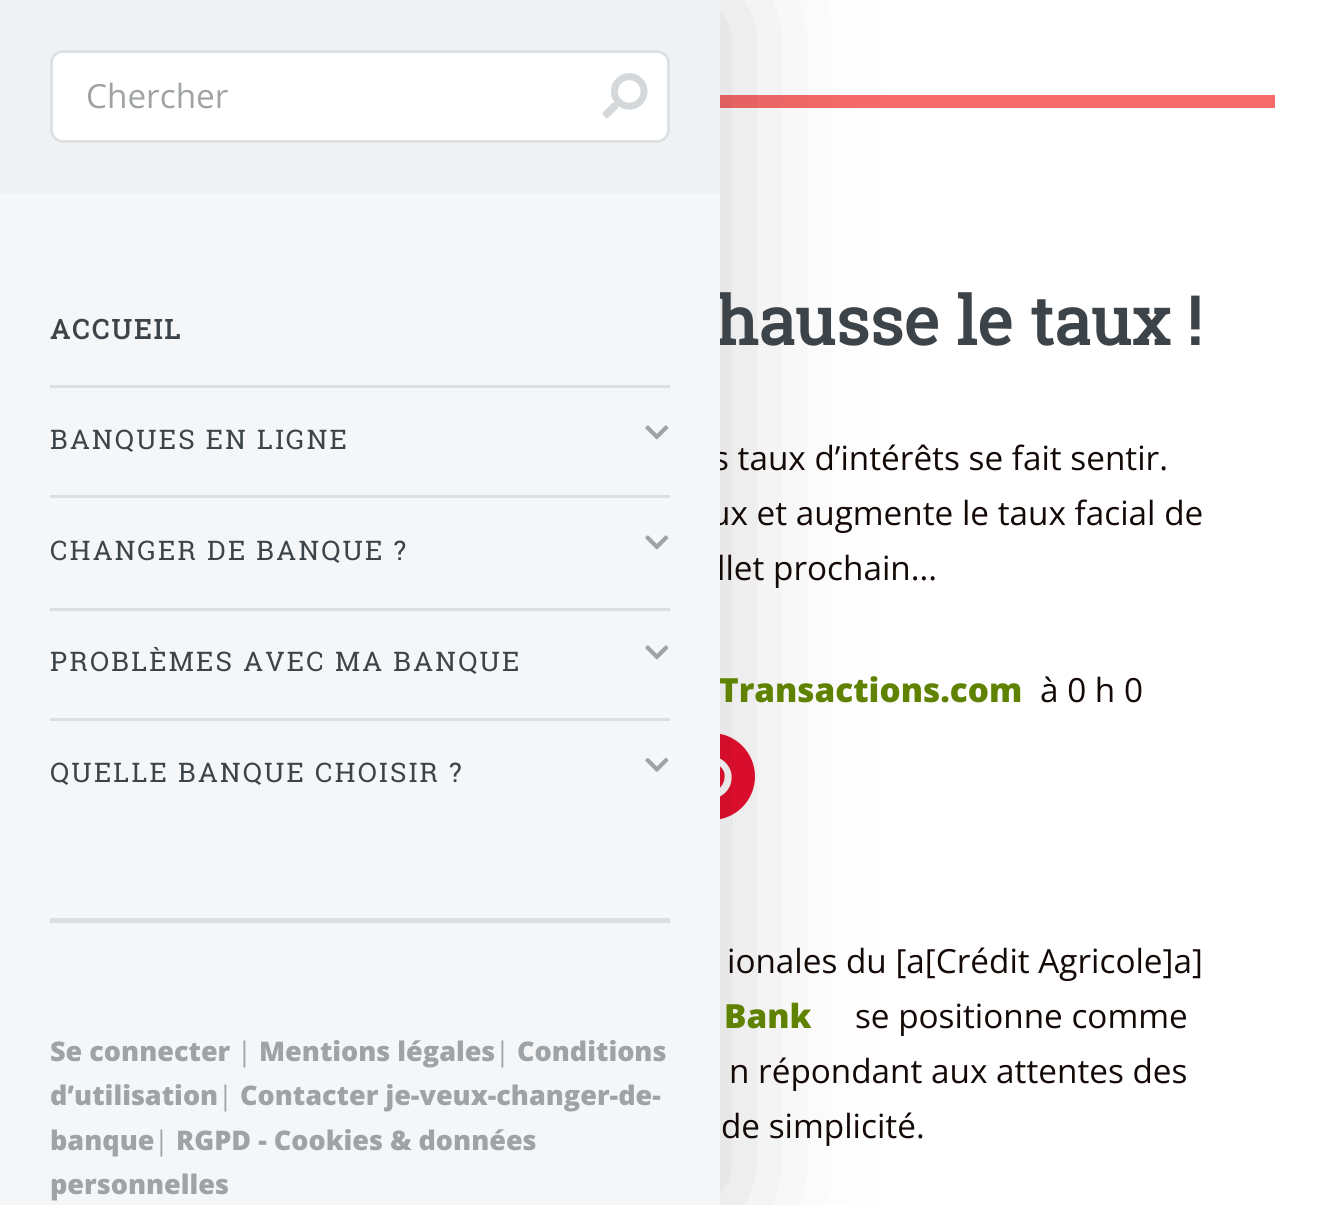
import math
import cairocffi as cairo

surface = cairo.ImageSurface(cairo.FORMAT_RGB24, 1342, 1205)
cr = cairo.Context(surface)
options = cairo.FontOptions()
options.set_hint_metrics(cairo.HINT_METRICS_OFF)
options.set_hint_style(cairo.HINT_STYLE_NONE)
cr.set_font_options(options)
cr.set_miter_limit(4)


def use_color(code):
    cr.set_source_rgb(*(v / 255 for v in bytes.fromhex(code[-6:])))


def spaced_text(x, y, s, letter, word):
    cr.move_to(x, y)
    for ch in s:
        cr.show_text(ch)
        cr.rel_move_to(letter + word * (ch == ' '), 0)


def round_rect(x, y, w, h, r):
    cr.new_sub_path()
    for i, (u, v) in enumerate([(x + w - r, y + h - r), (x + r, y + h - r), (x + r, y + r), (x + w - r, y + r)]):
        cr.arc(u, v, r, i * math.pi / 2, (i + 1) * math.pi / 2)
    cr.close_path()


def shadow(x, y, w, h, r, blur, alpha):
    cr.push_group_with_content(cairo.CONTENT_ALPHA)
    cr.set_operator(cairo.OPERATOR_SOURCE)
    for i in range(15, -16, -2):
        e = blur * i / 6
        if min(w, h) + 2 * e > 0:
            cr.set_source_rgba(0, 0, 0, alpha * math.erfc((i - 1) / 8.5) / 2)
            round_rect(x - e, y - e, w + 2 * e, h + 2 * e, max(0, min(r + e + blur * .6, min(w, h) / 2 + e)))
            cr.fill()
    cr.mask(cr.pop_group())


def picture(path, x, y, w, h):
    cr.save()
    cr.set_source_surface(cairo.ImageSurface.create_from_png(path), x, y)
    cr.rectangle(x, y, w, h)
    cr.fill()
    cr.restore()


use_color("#ffffff")
cr.paint()
use_color("#f56a6a")
cr.rectangle(720, 95, 555, 13)
cr.fill()
use_color("#e70f2f")
cr.arc(711.5, 776.5, 43.5, 0, 2 * math.pi)
cr.fill()
picture("img4.png", 720, 758, 12, 39)
use_color("#000000")
shadow(0, 0, 720, 1205, 0, 75, 0.18)
cr.select_font_face("Roboto Slab", cairo.FONT_SLANT_NORMAL, cairo.FONT_WEIGHT_BOLD)
cr.set_font_size(66.75)
use_color("#3d4449")
cr.move_to(715, 345)
cr.show_text("hausse le taux !")
cr.select_font_face("Open Sans")
cr.set_font_size(33.3)
use_color("#130906")
cr.move_to(713, 470)
cr.show_text("s taux d’intérêts se fait sentir.")
cr.move_to(710, 525)
cr.show_text("ux et augmente le taux facial de")
cr.move_to(717, 580)
cr.show_text("llet prochain...")
cr.select_font_face("Open Sans ExtraBold")
use_color("#5f8201")
cr.move_to(719, 702)
cr.show_text("Transactions.com")
use_color("#f5f6f7")
cr.rectangle(0, 193, 720, 1012)
cr.fill()
use_color("#eff1f2")
cr.rectangle(0, 0, 720, 193)
cr.fill()
use_color("#ffffff")
round_rect(50, 50, 620, 93, 13)
cr.fill()
round_rect(51.5, 51.5, 617, 90, 11.5)
cr.set_source_rgba(0.824, 0.843, 0.851, 0.75)
cr.set_line_width(3)
cr.stroke()
cr.select_font_face("Open Sans")
use_color("#9fa3a6")
cr.move_to(86, 108)
cr.show_text("Chercher")
picture("img1.png", 602, 73, 46, 45)
use_color("#dbdfe1")
cr.rectangle(50, 918, 620, 5)
cr.fill()
cr.select_font_face("Roboto Slab", cairo.FONT_SLANT_NORMAL, cairo.FONT_WEIGHT_BOLD)
cr.set_font_size(27)
use_color("#3d4449")
spaced_text(50, 339, "ACCUEIL", 2.25, 0)
use_color("#dbdfe1")
cr.rectangle(50, 385, 620, 3)
cr.fill()
cr.select_font_face("Roboto Slab")
use_color("#3d4449")
spaced_text(50, 449, "BANQUES EN LIGNE", 2.25, 0)
picture("img2.png", 645, 425, 24, 15)
use_color("#dbdfe1")
cr.rectangle(50, 495, 620, 3)
cr.fill()
use_color("#3d4449")
spaced_text(50, 560, "CHANGER DE BANQUE ?", 2.25, 0)
picture("img2.png", 645, 535, 24, 15)
use_color("#dbdfe1")
cr.rectangle(50, 608, 620, 3)
cr.fill()
use_color("#3d4449")
spaced_text(50, 671, "PROBLÈMES AVEC MA BANQUE", 2.25, 0)
picture("img2.png", 645, 645, 24, 15)
use_color("#dbdfe1")
cr.rectangle(50, 718, 620, 3)
cr.fill()
use_color("#3d4449")
spaced_text(50, 782, "QUELLE BANQUE CHOISIR ?", 2.25, 0)
picture("img3.png", 645, 757, 24, 15)
cr.select_font_face("Open Sans ExtraBold")
use_color("#9fa3a6")
cr.move_to(50, 1061)
cr.show_text("Se connecter")
cr.select_font_face("Open Sans")
cr.move_to(237, 1061)
cr.show_text("|")
cr.select_font_face("Open Sans ExtraBold")
cr.move_to(259, 1061)
cr.show_text("Mentions légales")
cr.select_font_face("Open Sans")
cr.move_to(495, 1061)
cr.show_text("|")
cr.select_font_face("Open Sans ExtraBold")
cr.move_to(517, 1061)
cr.show_text("Conditions")
cr.move_to(50, 1105)
cr.show_text("d’utilisation")
cr.select_font_face("Open Sans")
cr.move_to(218, 1105)
cr.show_text("|")
cr.select_font_face("Open Sans ExtraBold")
cr.move_to(240, 1105)
cr.show_text("Contacter je-veux-changer-de-")
cr.move_to(50, 1150)
cr.show_text("banque")
cr.select_font_face("Open Sans")
cr.move_to(154, 1150)
cr.show_text("|")
cr.select_font_face("Open Sans ExtraBold")
cr.move_to(176, 1150)
cr.show_text("RGPD - Cookies & données")
cr.move_to(50, 1194)
cr.show_text("personnelles")
cr.select_font_face("Open Sans")
cr.set_font_size(33.3)
use_color("#130906")
cr.move_to(1040, 702)
cr.show_text("à 0 h 0")
cr.move_to(727, 973)
cr.show_text("ionales du [a[Crédit Agricole]a]")
cr.select_font_face("Open Sans ExtraBold")
use_color("#5f8201")
cr.move_to(724, 1028)
cr.show_text("Bank")
cr.select_font_face("Open Sans")
use_color("#130906")
cr.move_to(855, 1028)
cr.show_text("se positionne comme")
cr.move_to(729, 1083)
cr.show_text("n répondant aux attentes des")
cr.move_to(721, 1138)
cr.show_text("de simplicité.")
surface.write_to_png("result.png")
